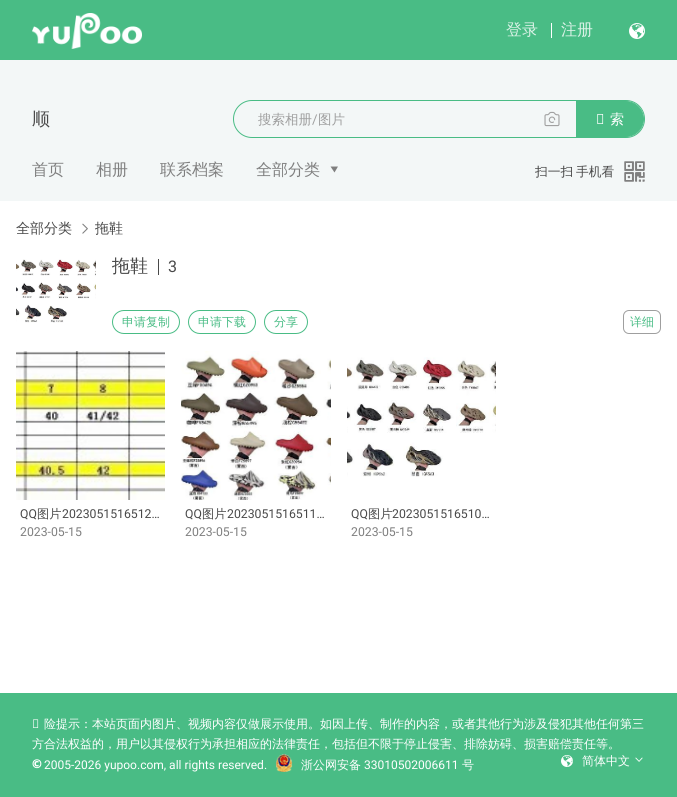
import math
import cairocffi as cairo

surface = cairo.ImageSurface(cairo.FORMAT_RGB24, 677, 797)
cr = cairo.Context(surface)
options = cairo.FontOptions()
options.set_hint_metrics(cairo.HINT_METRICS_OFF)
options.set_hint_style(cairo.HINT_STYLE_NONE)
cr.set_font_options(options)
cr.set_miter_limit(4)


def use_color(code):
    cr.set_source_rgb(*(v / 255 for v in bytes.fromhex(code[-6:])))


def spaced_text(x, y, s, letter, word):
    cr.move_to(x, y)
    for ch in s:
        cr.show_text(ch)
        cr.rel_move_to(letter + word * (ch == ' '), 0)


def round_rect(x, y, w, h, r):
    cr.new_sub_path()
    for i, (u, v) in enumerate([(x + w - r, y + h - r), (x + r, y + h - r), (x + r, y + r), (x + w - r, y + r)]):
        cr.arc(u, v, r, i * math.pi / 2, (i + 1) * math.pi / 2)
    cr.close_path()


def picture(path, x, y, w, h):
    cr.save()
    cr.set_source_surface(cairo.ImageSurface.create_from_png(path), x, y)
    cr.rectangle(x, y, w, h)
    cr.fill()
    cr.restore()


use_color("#ffffff")
cr.paint()
use_color("#49bc85")
cr.rectangle(0, 0, 677, 60)
cr.fill()
picture("img1.png", 32, 13, 110, 36)
cr.select_font_face("WenQuanYi Zen Hei Medium")
cr.set_font_size(16)
use_color("#dbf2e7")
cr.move_to(506, 35)
cr.show_text("登录")
use_color("#ffffff")
cr.rectangle(551, 23, 1, 15)
cr.fill()
use_color("#dbf2e7")
cr.move_to(561, 35)
cr.show_text("注册")
picture("img2.png", 629, 23, 16, 16)
use_color("#f3f7f7")
cr.rectangle(0, 60, 677, 141)
cr.fill()
cr.set_font_size(18)
use_color("#494949")
cr.move_to(32, 125)
cr.show_text("顺")
round_rect(233.5, 100.5, 411, 37, 18.5)
use_color("#49bc85")
cr.set_line_width(1)
cr.stroke()
cr.set_font_size(13.5)
use_color("#9f9f9f")
cr.move_to(258, 124)
cr.show_text("搜索相册")
cr.select_font_face("Roboto")
cr.move_to(312, 124)
cr.show_text("/")
cr.select_font_face("WenQuanYi Zen Hei Medium")
cr.move_to(318, 124)
cr.show_text("图片")
picture("img3.png", 544, 111, 16, 16)
use_color("#49bc85")
cr.new_path()
cr.move_to(576.5, 101.5)
cr.line_to(626, 101.5)
cr.curve_to(635.5, 101.5, 643.5, 109.5, 643.5, 119)
cr.curve_to(643.5, 128.5, 635.5, 136.5, 626, 136.5)
cr.line_to(576.5, 136.5)
cr.close_path()
cr.fill_preserve()
cr.stroke()
cr.select_font_face("Noto Sans")
cr.set_font_size(14)
use_color("#ffffff")
cr.move_to(596, 124)
cr.show_text("搜")
cr.select_font_face("WenQuanYi Zen Hei Medium")
cr.move_to(610, 124)
cr.show_text("索")
cr.set_font_size(16)
use_color("#7f7f7f")
cr.move_to(32, 175)
cr.show_text("首页")
cr.move_to(96, 175)
cr.show_text("相册")
cr.move_to(160, 175)
cr.show_text("联系档案")
cr.move_to(256, 175)
cr.show_text("全部分类")
cr.new_path()
cr.move_to(334.5, 172.5)
cr.line_to(330.5, 166.5)
cr.line_to(338, 166.5)
cr.close_path()
cr.fill()
cr.set_font_size(12.75)
use_color("#494949")
spaced_text(535, 176, "扫一扫 手机看", 0, -1)
picture("img4.png", 624, 161, 21, 21)
cr.set_font_size(14)
cr.move_to(16, 233)
cr.show_text("全部分类")
picture("img5.png", 82, 223, 6, 11)
cr.move_to(95, 233)
cr.show_text("拖鞋")
picture("img6.png", 16, 259, 80, 64)
cr.set_font_size(18)
cr.move_to(112, 272)
cr.show_text("拖鞋")
cr.rectangle(158, 259, 1, 16)
cr.fill()
cr.select_font_face("Roboto")
cr.set_font_size(16)
cr.move_to(168, 272)
cr.show_text("3")
round_rect(112.5, 310.5, 67, 23, 11.5)
use_color("#49bc85")
cr.stroke()
cr.select_font_face("WenQuanYi Zen Hei Medium")
cr.set_font_size(12)
cr.move_to(122, 326)
cr.show_text("申请复制")
round_rect(188.5, 310.5, 67, 23, 11.5)
cr.stroke()
cr.move_to(198, 326)
cr.show_text("申请下载")
round_rect(264.5, 310.5, 43, 23, 11.5)
cr.stroke()
cr.move_to(274, 326)
cr.show_text("分享")
round_rect(623.5, 310.5, 37, 23, 5.5)
use_color("#9f9f9f")
cr.stroke()
use_color("#49bc85")
cr.move_to(630, 326)
cr.show_text("详细")
picture("img7.png", 16, 351, 149, 149)
cr.select_font_face("Roboto")
cr.set_font_size(12.25)
use_color("#494949")
cr.move_to(20, 518)
cr.show_text("QQ")
cr.select_font_face("WenQuanYi Zen Hei Medium")
cr.move_to(37, 518)
cr.show_text("图片")
cr.select_font_face("Roboto")
cr.move_to(62, 518)
cr.show_text("2023051516512…")
use_color("#7f7f7f")
cr.move_to(20, 536)
cr.show_text("2023-05-15")
picture("img8.png", 181, 351, 150, 149)
use_color("#494949")
cr.move_to(185, 518)
cr.show_text("QQ")
cr.select_font_face("WenQuanYi Zen Hei Medium")
cr.move_to(202, 518)
cr.show_text("图片")
cr.select_font_face("Roboto")
cr.move_to(227, 518)
cr.show_text("2023051516511…")
use_color("#7f7f7f")
cr.move_to(185, 536)
cr.show_text("2023-05-15")
picture("img9.png", 347, 357, 149, 120)
use_color("#494949")
cr.move_to(351, 518)
cr.show_text("QQ")
cr.select_font_face("WenQuanYi Zen Hei Medium")
cr.move_to(368, 518)
cr.show_text("图片")
cr.select_font_face("Roboto")
cr.move_to(392, 518)
cr.show_text("2023051516510…")
use_color("#7f7f7f")
cr.move_to(351, 536)
cr.show_text("2023-05-15")
use_color("#49bc85")
cr.rectangle(0, 693, 677, 104)
cr.fill()
cr.select_font_face("Noto Sans")
cr.set_font_size(12)
use_color("#ffffff")
cr.move_to(32, 728)
cr.show_text("风")
cr.select_font_face("WenQuanYi Zen Hei Medium")
cr.move_to(44, 728)
cr.show_text("险提示：本站页面内图片、视频内容仅做展示使用。如因上传、制作的内容，或者其他行为涉及侵犯其他任何第三")
cr.move_to(32, 748)
cr.show_text("方合法权益的，用户以其侵权行为承担相应的法律责任，包括但不限于停止侵害、排除妨碍、损害赔偿责任等。")
cr.select_font_face("Noto Sans Black")
cr.move_to(32, 768)
cr.show_text("©")
cr.select_font_face("Roboto")
cr.move_to(44, 769)
cr.show_text("2005-2026 yupoo.com, all rights reserved.")
picture("img10.png", 276, 754, 17, 18)
cr.select_font_face("WenQuanYi Zen Hei Medium")
cr.move_to(301, 769)
cr.show_text("浙公网安备")
cr.select_font_face("Roboto")
cr.move_to(364, 769)
cr.show_text("33010502006611")
cr.select_font_face("WenQuanYi Zen Hei Medium")
cr.move_to(462, 769)
cr.show_text("号")
picture("img11.png", 561, 755, 12, 12)
cr.move_to(582, 765)
cr.show_text("简体中文")
picture("img12.png", 635, 757, 8, 5)
surface.write_to_png("result.png")
